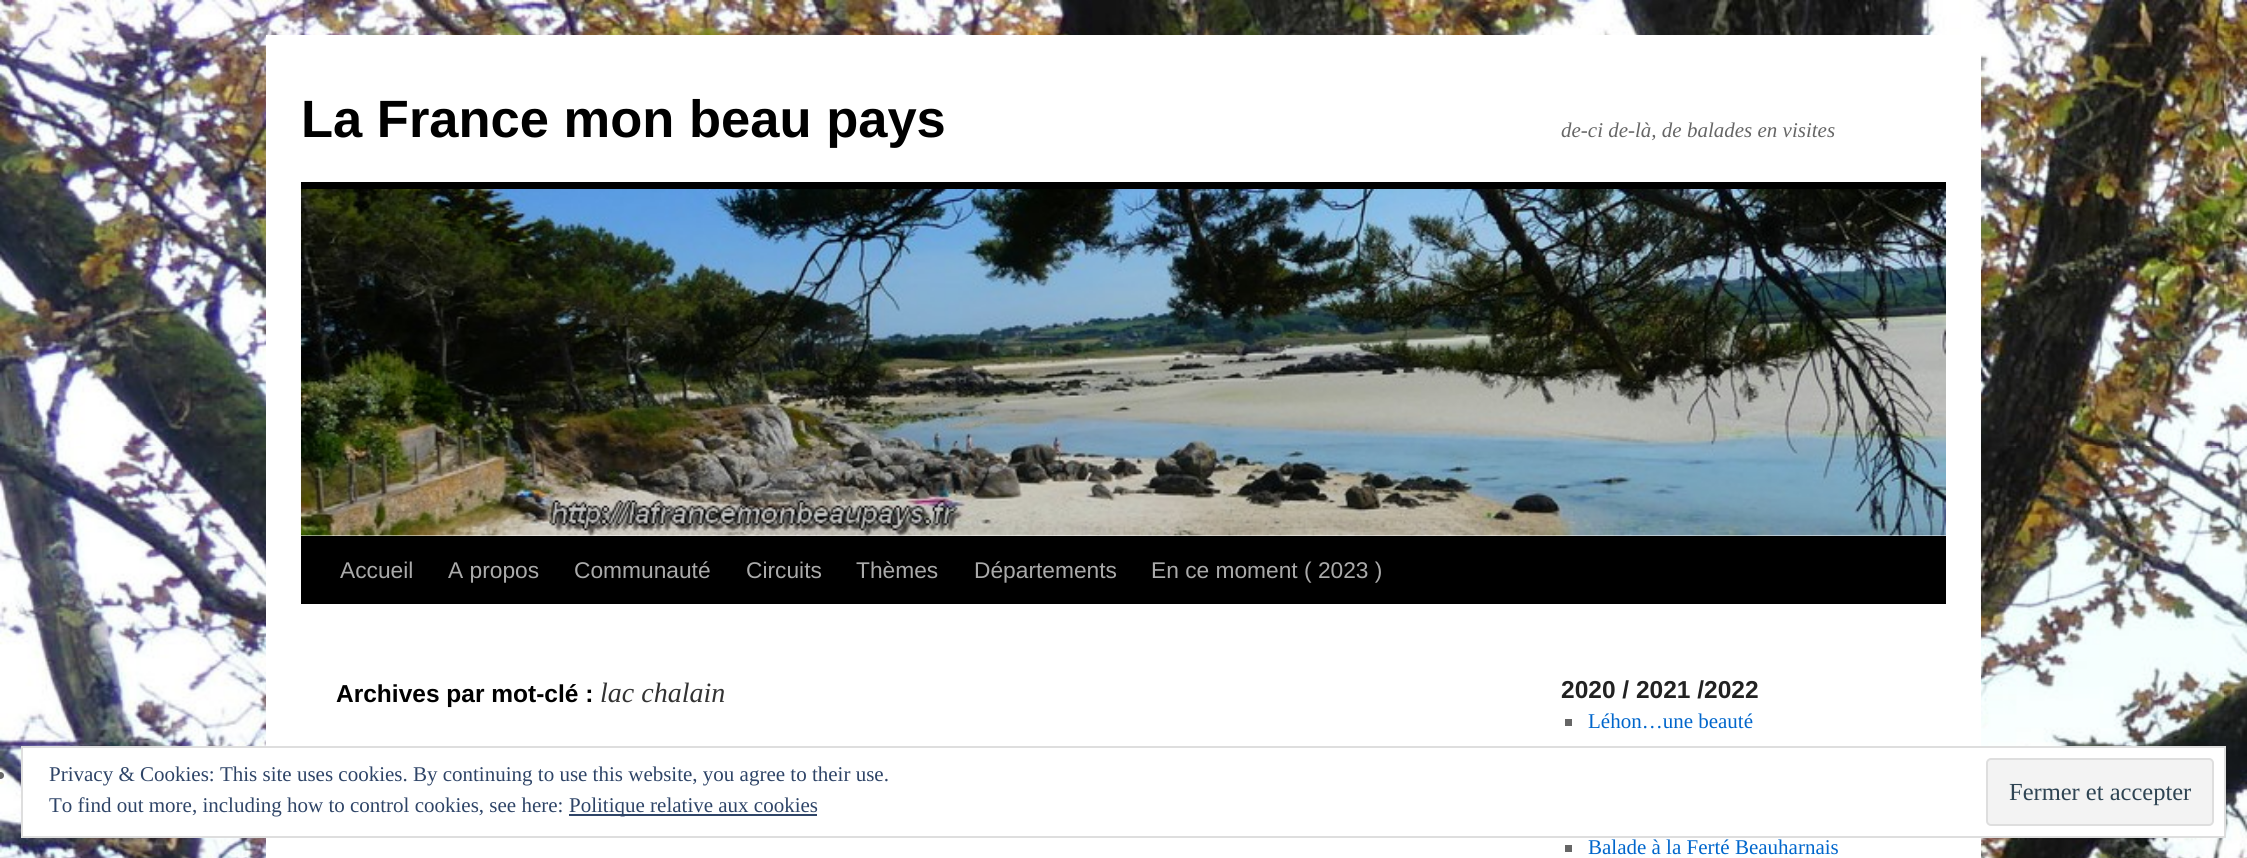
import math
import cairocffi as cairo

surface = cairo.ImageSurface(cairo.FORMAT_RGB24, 2247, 858)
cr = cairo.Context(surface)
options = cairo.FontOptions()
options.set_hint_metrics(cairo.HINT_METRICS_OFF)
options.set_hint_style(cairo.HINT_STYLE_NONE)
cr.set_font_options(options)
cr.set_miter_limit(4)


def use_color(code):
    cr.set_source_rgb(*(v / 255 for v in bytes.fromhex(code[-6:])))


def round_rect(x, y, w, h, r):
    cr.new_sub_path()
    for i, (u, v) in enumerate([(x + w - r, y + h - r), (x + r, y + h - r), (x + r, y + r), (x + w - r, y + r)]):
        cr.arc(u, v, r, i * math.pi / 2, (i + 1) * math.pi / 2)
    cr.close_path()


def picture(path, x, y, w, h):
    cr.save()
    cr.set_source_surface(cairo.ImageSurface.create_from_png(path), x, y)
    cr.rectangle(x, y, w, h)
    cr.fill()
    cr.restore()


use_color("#ffffff")
cr.paint()
picture("img1.png", 0, 0, 2247, 858)
use_color("#ffffff")
cr.rectangle(266, 35, 1715, 823)
cr.fill()
cr.select_font_face("Liberation Sans", cairo.FONT_SLANT_NORMAL, cairo.FONT_WEIGHT_BOLD)
cr.set_font_size(52.5)
use_color("#000000")
cr.move_to(301, 137)
cr.show_text("La France mon beau pays")
cr.select_font_face("Liberation Serif", cairo.FONT_SLANT_ITALIC)
cr.set_font_size(21)
use_color("#666666")
cr.move_to(1561, 137)
cr.show_text("de-ci de-là, de balades en visites")
use_color("#000000")
cr.rectangle(301, 182, 1645, 7)
cr.fill()
cr.rectangle(301, 536, 1645, 68)
cr.fill()
picture("img2.png", 301, 189, 1645, 347)
cr.select_font_face("Liberation Sans")
cr.set_font_size(22.75)
use_color("#aaaaaa")
cr.move_to(340, 578)
cr.show_text("Accueil")
cr.move_to(448, 578)
cr.show_text("A propos")
cr.move_to(574, 578)
cr.show_text("Communauté")
cr.move_to(746, 578)
cr.show_text("Circuits")
cr.move_to(856, 578)
cr.show_text("Thèmes")
cr.move_to(974, 578)
cr.show_text("Départements")
cr.move_to(1151, 578)
cr.show_text("En ce moment ( 2023 )")
cr.select_font_face("Liberation Sans", cairo.FONT_SLANT_NORMAL, cairo.FONT_WEIGHT_BOLD)
cr.set_font_size(24.5)
use_color("#000000")
cr.move_to(336, 702)
cr.show_text("Archives par mot-clé :")
cr.select_font_face("Liberation Serif", cairo.FONT_SLANT_ITALIC)
cr.set_font_size(28)
use_color("#333333")
cr.move_to(600, 702)
cr.show_text("lac chalain")
cr.select_font_face("Liberation Sans", cairo.FONT_SLANT_NORMAL, cairo.FONT_WEIGHT_BOLD)
cr.set_font_size(24.5)
use_color("#222222")
cr.move_to(1561, 698)
cr.show_text("2020 / 2021 /2022")
use_color("#666666")
cr.rectangle(1565, 719, 7, 7)
cr.fill()
cr.select_font_face("Liberation Serif")
cr.set_font_size(21)
use_color("#0066cc")
cr.move_to(1588, 728)
cr.show_text("Léhon…une beauté")
use_color("#666666")
cr.rectangle(1565, 845, 7, 7)
cr.fill()
use_color("#0066cc")
cr.move_to(1588, 854)
cr.show_text("Balade à la Ferté Beauharnais")
use_color("#666666")
cr.new_path()
cr.arc(0.5, 775.5, 3.5, 0, 2 * math.pi)
cr.fill()
use_color("#ffffff")
cr.rectangle(22, 747, 2203, 90)
cr.fill_preserve()
use_color("#dedede")
cr.stroke()
use_color("#2e4467")
cr.move_to(49, 781)
cr.show_text("Privacy & Cookies: This site uses cookies. By continuing to use this website, you agree to their use.")
cr.move_to(49, 812)
cr.show_text("To find out more, including how to control cookies, see here:")
cr.rectangle(569, 814, 248, 2)
cr.fill()
cr.move_to(569, 812)
cr.show_text("Politique relative aux cookies")
use_color("#f3f3f3")
round_rect(1987, 759, 226, 66, 4)
cr.fill_preserve()
use_color("#dedede")
cr.stroke()
cr.set_font_size(24.5)
use_color("#2e4453")
cr.move_to(2009, 800)
cr.show_text("Fermer et accepter")
surface.write_to_png("result.png")
